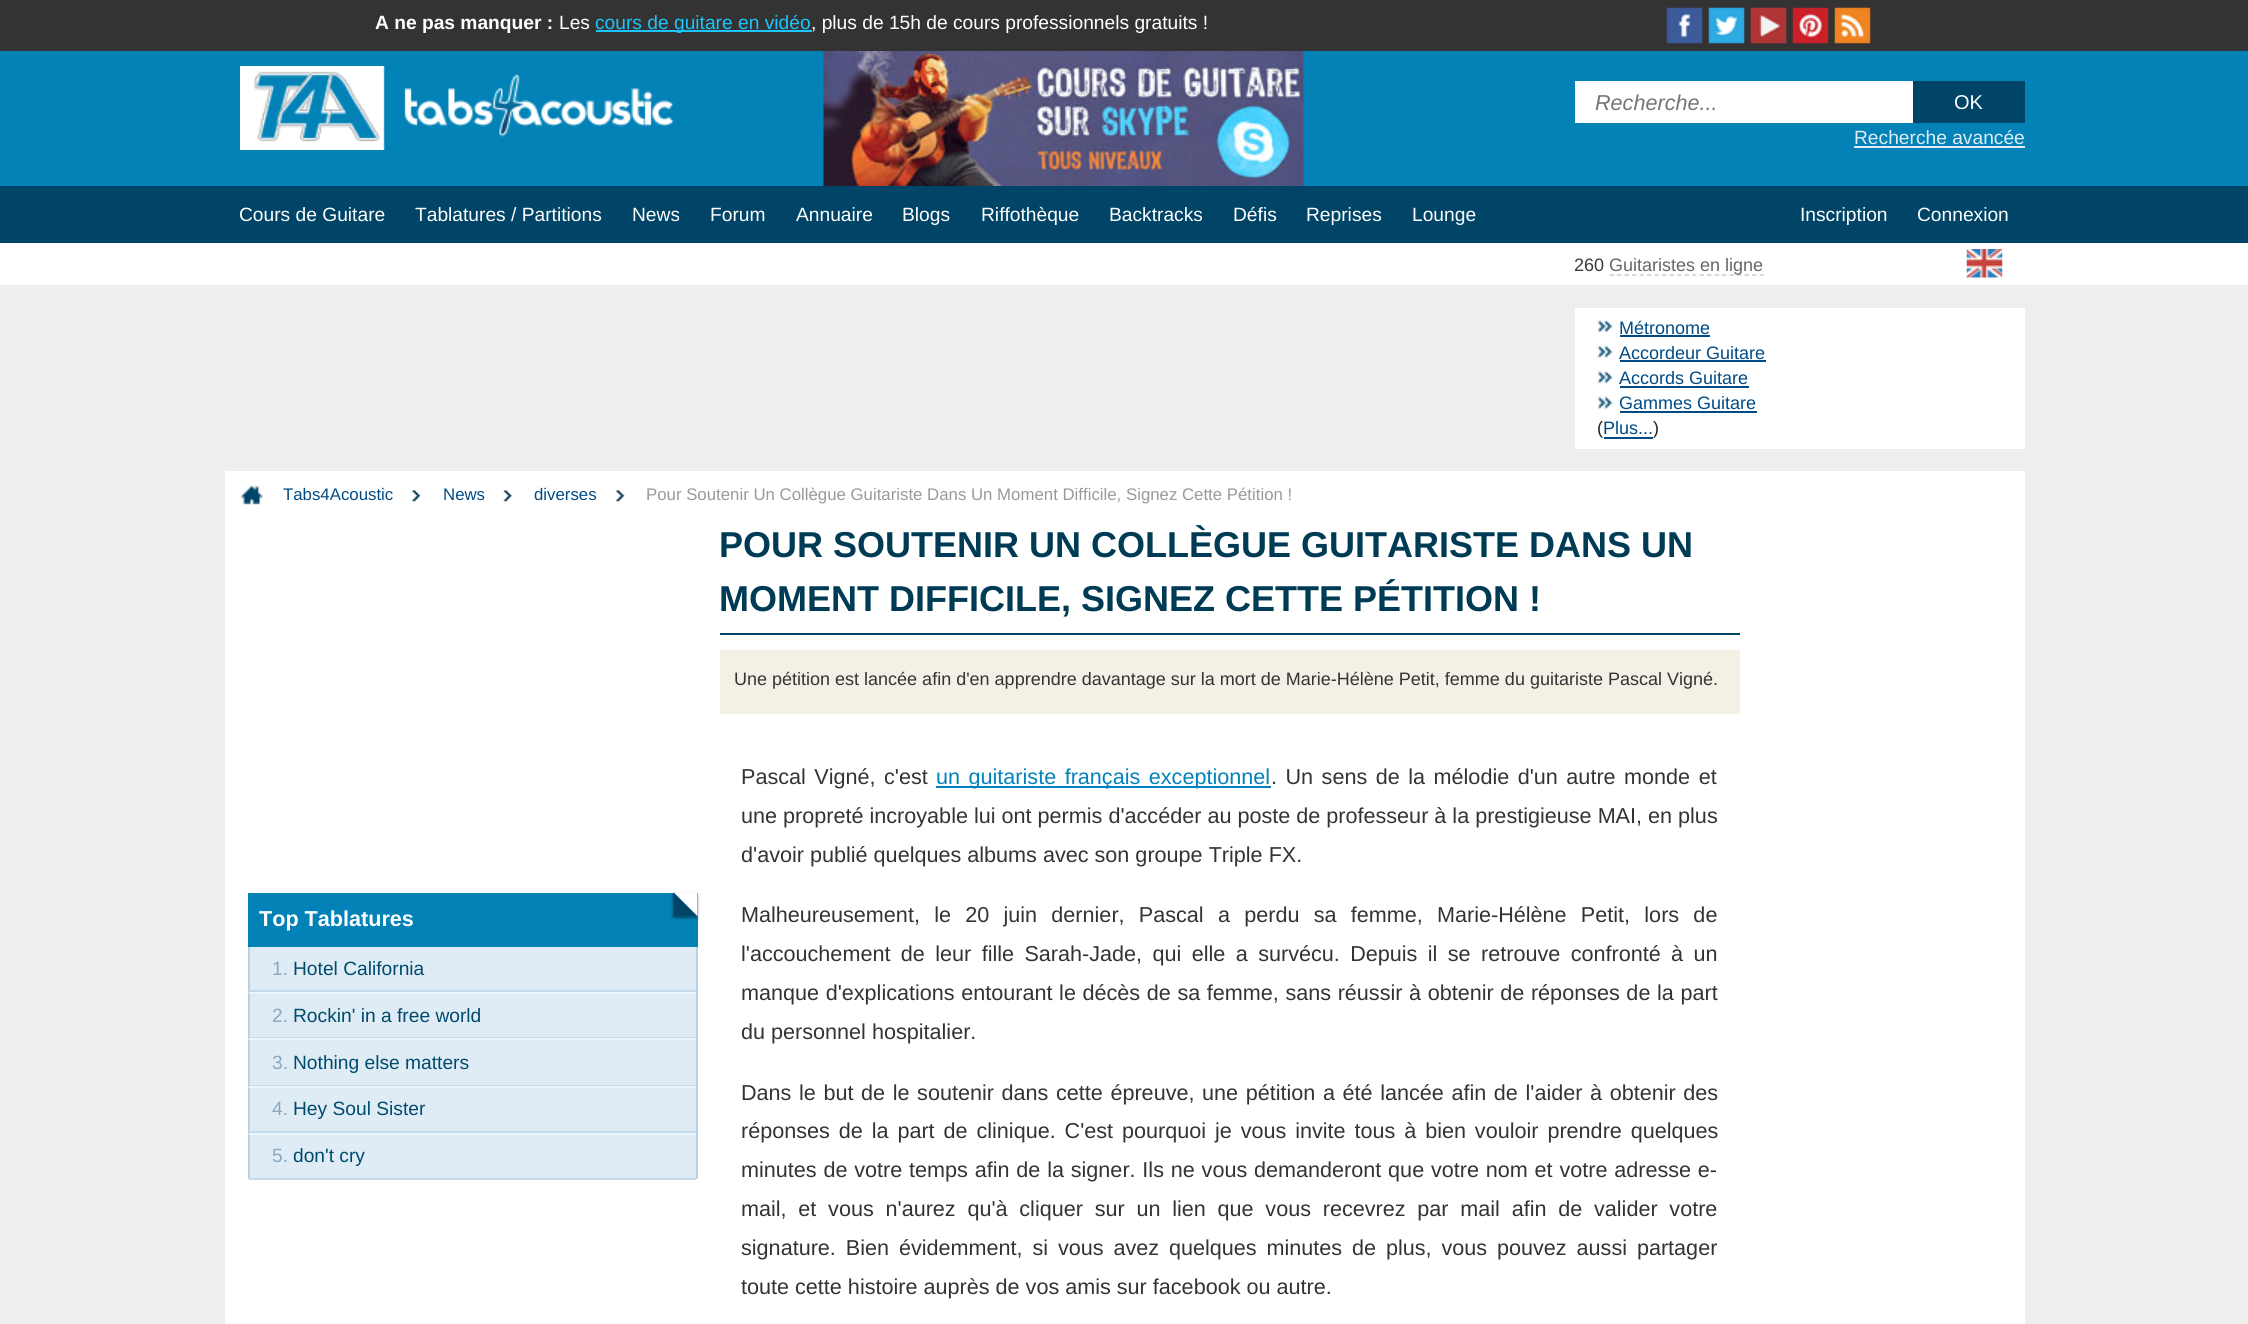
import math
import cairocffi as cairo

surface = cairo.ImageSurface(cairo.FORMAT_RGB24, 2248, 1324)
cr = cairo.Context(surface)
options = cairo.FontOptions()
options.set_hint_metrics(cairo.HINT_METRICS_OFF)
options.set_hint_style(cairo.HINT_STYLE_NONE)
cr.set_font_options(options)
cr.set_miter_limit(4)


def use_color(code):
    cr.set_source_rgb(*(v / 255 for v in bytes.fromhex(code[-6:])))


def spaced_text(x, y, s, letter, word):
    cr.move_to(x, y)
    for ch in s:
        cr.show_text(ch)
        cr.rel_move_to(letter + word * (ch == ' '), 0)


def round_rect(x, y, w, h, r):
    cr.new_sub_path()
    for i, (u, v) in enumerate([(x + w - r, y + h - r), (x + r, y + h - r), (x + r, y + r), (x + w - r, y + r)]):
        cr.arc(u, v, r, i * math.pi / 2, (i + 1) * math.pi / 2)
    cr.close_path()


def shadow(x, y, w, h, r, blur, alpha):
    cr.push_group_with_content(cairo.CONTENT_ALPHA)
    cr.set_operator(cairo.OPERATOR_SOURCE)
    for i in range(15, -16, -2):
        e = blur * i / 6
        if min(w, h) + 2 * e > 0:
            cr.set_source_rgba(0, 0, 0, alpha * math.erfc((i - 1) / 8.5) / 2)
            round_rect(x - e, y - e, w + 2 * e, h + 2 * e, max(0, min(r + e + blur * .6, min(w, h) / 2 + e)))
            cr.fill()
    cr.mask(cr.pop_group())


def picture(path, x, y, w, h):
    cr.save()
    cr.set_source_surface(cairo.ImageSurface.create_from_png(path), x, y)
    cr.rectangle(x, y, w, h)
    cr.fill()
    cr.restore()


use_color("#eeeeee")
cr.paint()
use_color("#333333")
cr.rectangle(0, 0, 2248, 51)
cr.fill()
cr.select_font_face("Liberation Sans", cairo.FONT_SLANT_NORMAL, cairo.FONT_WEIGHT_BOLD)
cr.set_font_size(19.2)
use_color("#ffffff")
cr.move_to(375, 29)
cr.show_text("A ne pas manquer :")
cr.select_font_face("Liberation Sans")
cr.move_to(559, 29)
cr.show_text("Les")
use_color("#1cc5fb")
cr.rectangle(596, 30, 216, 2)
cr.fill()
cr.move_to(595, 29)
cr.show_text("cours de guitare en vidéo")
use_color("#ffffff")
cr.move_to(811, 29)
cr.show_text(", plus de 15h de cours professionnels gratuits !")
picture("img1.png", 1666, 7, 37, 37)
picture("img2.png", 1708, 7, 37, 37)
picture("img3.png", 1750, 7, 37, 37)
picture("img4.png", 1792, 7, 37, 37)
picture("img5.png", 1834, 7, 37, 37)
use_color("#0282b6")
cr.rectangle(0, 51, 2248, 135)
cr.fill()
picture("img6.png", 240, 66, 434, 84)
picture("img7.png", 823, 51, 481, 135)
use_color("#ffffff")
cr.rectangle(1575, 81, 338, 42)
cr.fill()
cr.select_font_face("Liberation Sans", cairo.FONT_SLANT_ITALIC)
cr.set_font_size(21.6)
use_color("#757575")
cr.move_to(1595, 110)
cr.show_text("Recherche...")
use_color("#004567")
cr.rectangle(1913, 81, 112, 42)
cr.fill()
cr.select_font_face("Liberation Sans")
cr.set_font_size(20)
use_color("#ffffff")
cr.move_to(1954, 109)
cr.show_text("OK")
cr.set_font_size(19.2)
use_color("#dfecf4")
cr.move_to(1854, 144)
cr.show_text("Recherche avancée")
cr.rectangle(1854, 146, 171, 2)
cr.fill()
use_color("#004567")
cr.rectangle(0, 186, 2248, 57)
cr.fill()
use_color("#ffffff")
cr.move_to(239, 221)
cr.show_text("Cours de Guitare")
cr.move_to(415, 221)
cr.show_text("Tablatures / Partitions")
cr.move_to(632, 221)
cr.show_text("News")
cr.move_to(710, 221)
cr.show_text("Forum")
cr.move_to(796, 221)
cr.show_text("Annuaire")
cr.move_to(902, 221)
cr.show_text("Blogs")
cr.move_to(981, 221)
cr.show_text("Riffothèque")
cr.move_to(1109, 221)
cr.show_text("Backtracks")
cr.move_to(1233, 221)
cr.show_text("Défis")
cr.move_to(1306, 221)
cr.show_text("Reprises")
cr.move_to(1412, 221)
cr.show_text("Lounge")
cr.move_to(1800, 221)
cr.show_text("Inscription")
cr.move_to(1917, 221)
cr.show_text("Connexion")
cr.rectangle(0, 243, 2248, 42)
cr.fill()
cr.set_font_size(18)
use_color("#3a3a3a")
cr.move_to(1574, 271)
cr.show_text("260")
cr.new_path()
cr.move_to(1609.5, 275)
cr.line_to(1764, 275)
use_color("#cccccc")
cr.set_line_width(1.5)
cr.set_dash([4.5, 3])
cr.stroke()
use_color("#666666")
cr.move_to(1609, 271)
cr.show_text("Guitaristes en ligne")
picture("img8.png", 1966, 249, 37, 29)
use_color("#ffffff")
cr.rectangle(1575, 308, 450, 141)
cr.fill()
picture("img9.png", 1597, 319, 16, 14)
use_color("#004b85")
cr.move_to(1619, 334)
cr.show_text("Métronome")
cr.rectangle(1620, 335, 90, 2)
cr.fill()
picture("img10.png", 1597, 345, 16, 14)
cr.move_to(1619, 359)
cr.show_text("Accordeur Guitare")
cr.rectangle(1620, 360, 146, 2)
cr.fill()
picture("img9.png", 1597, 370, 16, 14)
cr.move_to(1619, 384)
cr.show_text("Accords Guitare")
cr.rectangle(1620, 386, 129, 2)
cr.fill()
picture("img10.png", 1597, 396, 16, 14)
cr.move_to(1619, 409)
cr.show_text("Gammes Guitare")
cr.rectangle(1620, 411, 137, 2)
cr.fill()
use_color("#222222")
cr.move_to(1597, 434)
cr.show_text("(")
use_color("#004b85")
cr.move_to(1603, 434)
cr.show_text("Plus...")
cr.rectangle(1604, 437, 49, 2)
cr.fill()
use_color("#222222")
cr.move_to(1653, 434)
cr.show_text(")")
use_color("#ffffff")
cr.rectangle(225, 471, 1800, 853)
cr.fill()
picture("img11.png", 240, 485, 23, 20)
cr.set_font_size(16.8)
use_color("#004b85")
cr.move_to(283, 500)
cr.show_text("Tabs4Acoustic")
picture("img12.png", 412, 490, 9, 12)
cr.move_to(443, 500)
cr.show_text("News")
picture("img13.png", 503, 490, 9, 12)
cr.move_to(534, 500)
cr.show_text("diverses")
picture("img14.png", 616, 490, 9, 12)
use_color("#999999")
cr.move_to(646, 500)
cr.show_text("Pour Soutenir Un Collègue Guitariste Dans Un Moment Difficile, Signez Cette Pétition !")
use_color("#0282b6")
cr.rectangle(248, 893, 450, 54)
cr.fill()
cr.select_font_face("Liberation Sans", cairo.FONT_SLANT_NORMAL, cairo.FONT_WEIGHT_BOLD)
cr.set_font_size(21.6)
use_color("#ffffff")
cr.move_to(259, 926)
cr.show_text("Top Tablatures")
use_color("#000000")
shadow(672, 894, 24, 24, 0, 1, 0.2)
cr.save()
cr.set_fill_rule(cairo.FILL_RULE_EVEN_ODD)
cr.new_path()
cr.move_to(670, 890)
cr.line_to(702, 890)
cr.line_to(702, 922)
cr.line_to(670, 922)
cr.close_path()
cr.move_to(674, 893)
cr.line_to(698, 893)
cr.line_to(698, 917)
cr.line_to(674, 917)
cr.close_path()
cr.clip()
shadow(674, 894, 24, 24, 0, 1, 0.3)
cr.restore()
cr.save()
cr.rectangle(248, 893, 450, 54)
cr.clip()
use_color("#ffffff")
cr.new_path()
cr.move_to(697.5, 892.5)
cr.line_to(697.5, 916.5)
cr.line_to(673.5, 892.5)
cr.close_path()
cr.fill()
cr.restore()
use_color("#004567")
cr.new_path()
cr.move_to(697.5, 916.5)
cr.line_to(673.5, 916.5)
cr.line_to(673.5, 892.5)
cr.close_path()
cr.fill()
use_color("#dfecf5")
cr.rectangle(250, 947, 446, 231)
cr.fill()
use_color("#b7d2e4")
cr.rectangle(696, 947, 2, 232)
cr.fill()
cr.rectangle(248, 947, 2, 232)
cr.fill()
use_color("#c3daea")
cr.rectangle(249, 990, 447, 2)
cr.fill()
cr.select_font_face("Liberation Sans")
cr.set_font_size(19.2)
use_color("#8aa9bf")
cr.move_to(272, 975)
cr.show_text("1.")
use_color("#004b6d")
cr.move_to(293, 975)
cr.show_text("Hotel California")
use_color("#ecf5fb")
cr.rectangle(249, 992, 447, 2)
cr.fill()
use_color("#c3daea")
cr.rectangle(249, 1037, 447, 1)
cr.fill()
use_color("#8aa9bf")
cr.move_to(272, 1022)
cr.show_text("2.")
use_color("#004b6d")
cr.move_to(293, 1022)
cr.show_text("Rockin' in a free world")
use_color("#ecf5fb")
cr.rectangle(249, 1038, 447, 2)
cr.fill()
use_color("#c3daea")
cr.rectangle(249, 1085, 447, 1)
cr.fill()
use_color("#8aa9bf")
cr.move_to(272, 1069)
cr.show_text("3.")
use_color("#004b6d")
cr.move_to(293, 1069)
cr.show_text("Nothing else matters")
use_color("#ecf5fb")
cr.rectangle(249, 1086, 447, 2)
cr.fill()
use_color("#c3daea")
cr.rectangle(249, 1131, 447, 2)
cr.fill()
use_color("#8aa9bf")
cr.move_to(272, 1115)
cr.show_text("4.")
use_color("#004b6d")
cr.move_to(293, 1115)
cr.show_text("Hey Soul Sister")
use_color("#ecf5fb")
cr.rectangle(249, 1133, 447, 2)
cr.fill()
use_color("#c3daea")
cr.rectangle(249, 1178, 447, 2)
cr.fill()
use_color("#8aa9bf")
cr.move_to(272, 1162)
cr.show_text("5.")
use_color("#004b6d")
cr.move_to(293, 1162)
cr.show_text("don't cry")
use_color("#004567")
cr.rectangle(720, 633, 1020, 2)
cr.fill()
cr.select_font_face("Liberation Sans", cairo.FONT_SLANT_NORMAL, cairo.FONT_WEIGHT_BOLD)
cr.set_font_size(36)
use_color("#003b55")
cr.move_to(719, 557)
cr.show_text("POUR SOUTENIR UN COLLÈGUE GUITARISTE DANS UN")
cr.move_to(719, 611)
cr.show_text("MOMENT DIFFICILE, SIGNEZ CETTE PÉTITION !")
use_color("#f3f0e6")
cr.rectangle(720, 650, 1020, 64)
cr.fill()
cr.select_font_face("Liberation Sans")
cr.set_font_size(18)
use_color("#333333")
cr.move_to(734, 685)
cr.show_text("Une pétition est lancée afin d'en apprendre davantage sur la mort de Marie-Hélène Petit, femme du guitariste Pascal Vigné.")
cr.set_font_size(21.6)
spaced_text(741, 784, "Pascal Vigné, c'est", 0, 2.5)
use_color("#0082bc")
cr.rectangle(936, 786, 335, 2)
cr.fill()
spaced_text(936, 784, "un guitariste français exceptionnel", 0, 2.5)
use_color("#333333")
spaced_text(1271, 784, ". Un sens de la mélodie d'un autre monde et", 0, 2.5)
cr.move_to(741, 823)
cr.show_text("une propreté incroyable lui ont permis d'accéder au poste de professeur à la prestigieuse MAI, en plus")
cr.move_to(741, 862)
cr.show_text("d'avoir publié quelques albums avec son groupe Triple FX.")
spaced_text(741, 922, "Malheureusement, le 20 juin dernier, Pascal a perdu sa femme, Marie-Hélène Petit, lors de", 0, 8.25)
spaced_text(741, 961, "l'accouchement de leur fille Sarah-Jade, qui elle a survécu. Depuis il se retrouve confronté à un", 0, 4.4)
spaced_text(741, 1000, "manque d'explications entourant le décès de sa femme, sans réussir à obtenir de réponses de la part", 0, 0.6)
cr.move_to(741, 1039)
cr.show_text("du personnel hospitalier.")
spaced_text(741, 1100, "Dans le but de le soutenir dans cette épreuve, une pétition a été lancée afin de l'aider à obtenir des", 0, 1.6)
spaced_text(741, 1138, "réponses de la part de clinique. C'est pourquoi je vous invite tous à bien vouloir prendre quelques", 0, 2.9)
spaced_text(741, 1177, "minutes de votre temps afin de la signer. Ils ne vous demanderont que votre nom et votre adresse e-", 0, 0.8)
spaced_text(741, 1216, "mail, et vous n'aurez qu'à cliquer sur un lien que vous recevrez par mail afin de valider votre", 0, 5.75)
spaced_text(741, 1255, "signature. Bien évidemment, si vous avez quelques minutes de plus, vous pouvez aussi partager", 0, 3.9)
cr.move_to(741, 1294)
cr.show_text("toute cette histoire auprès de vos amis sur facebook ou autre.")
surface.write_to_png("result.png")
